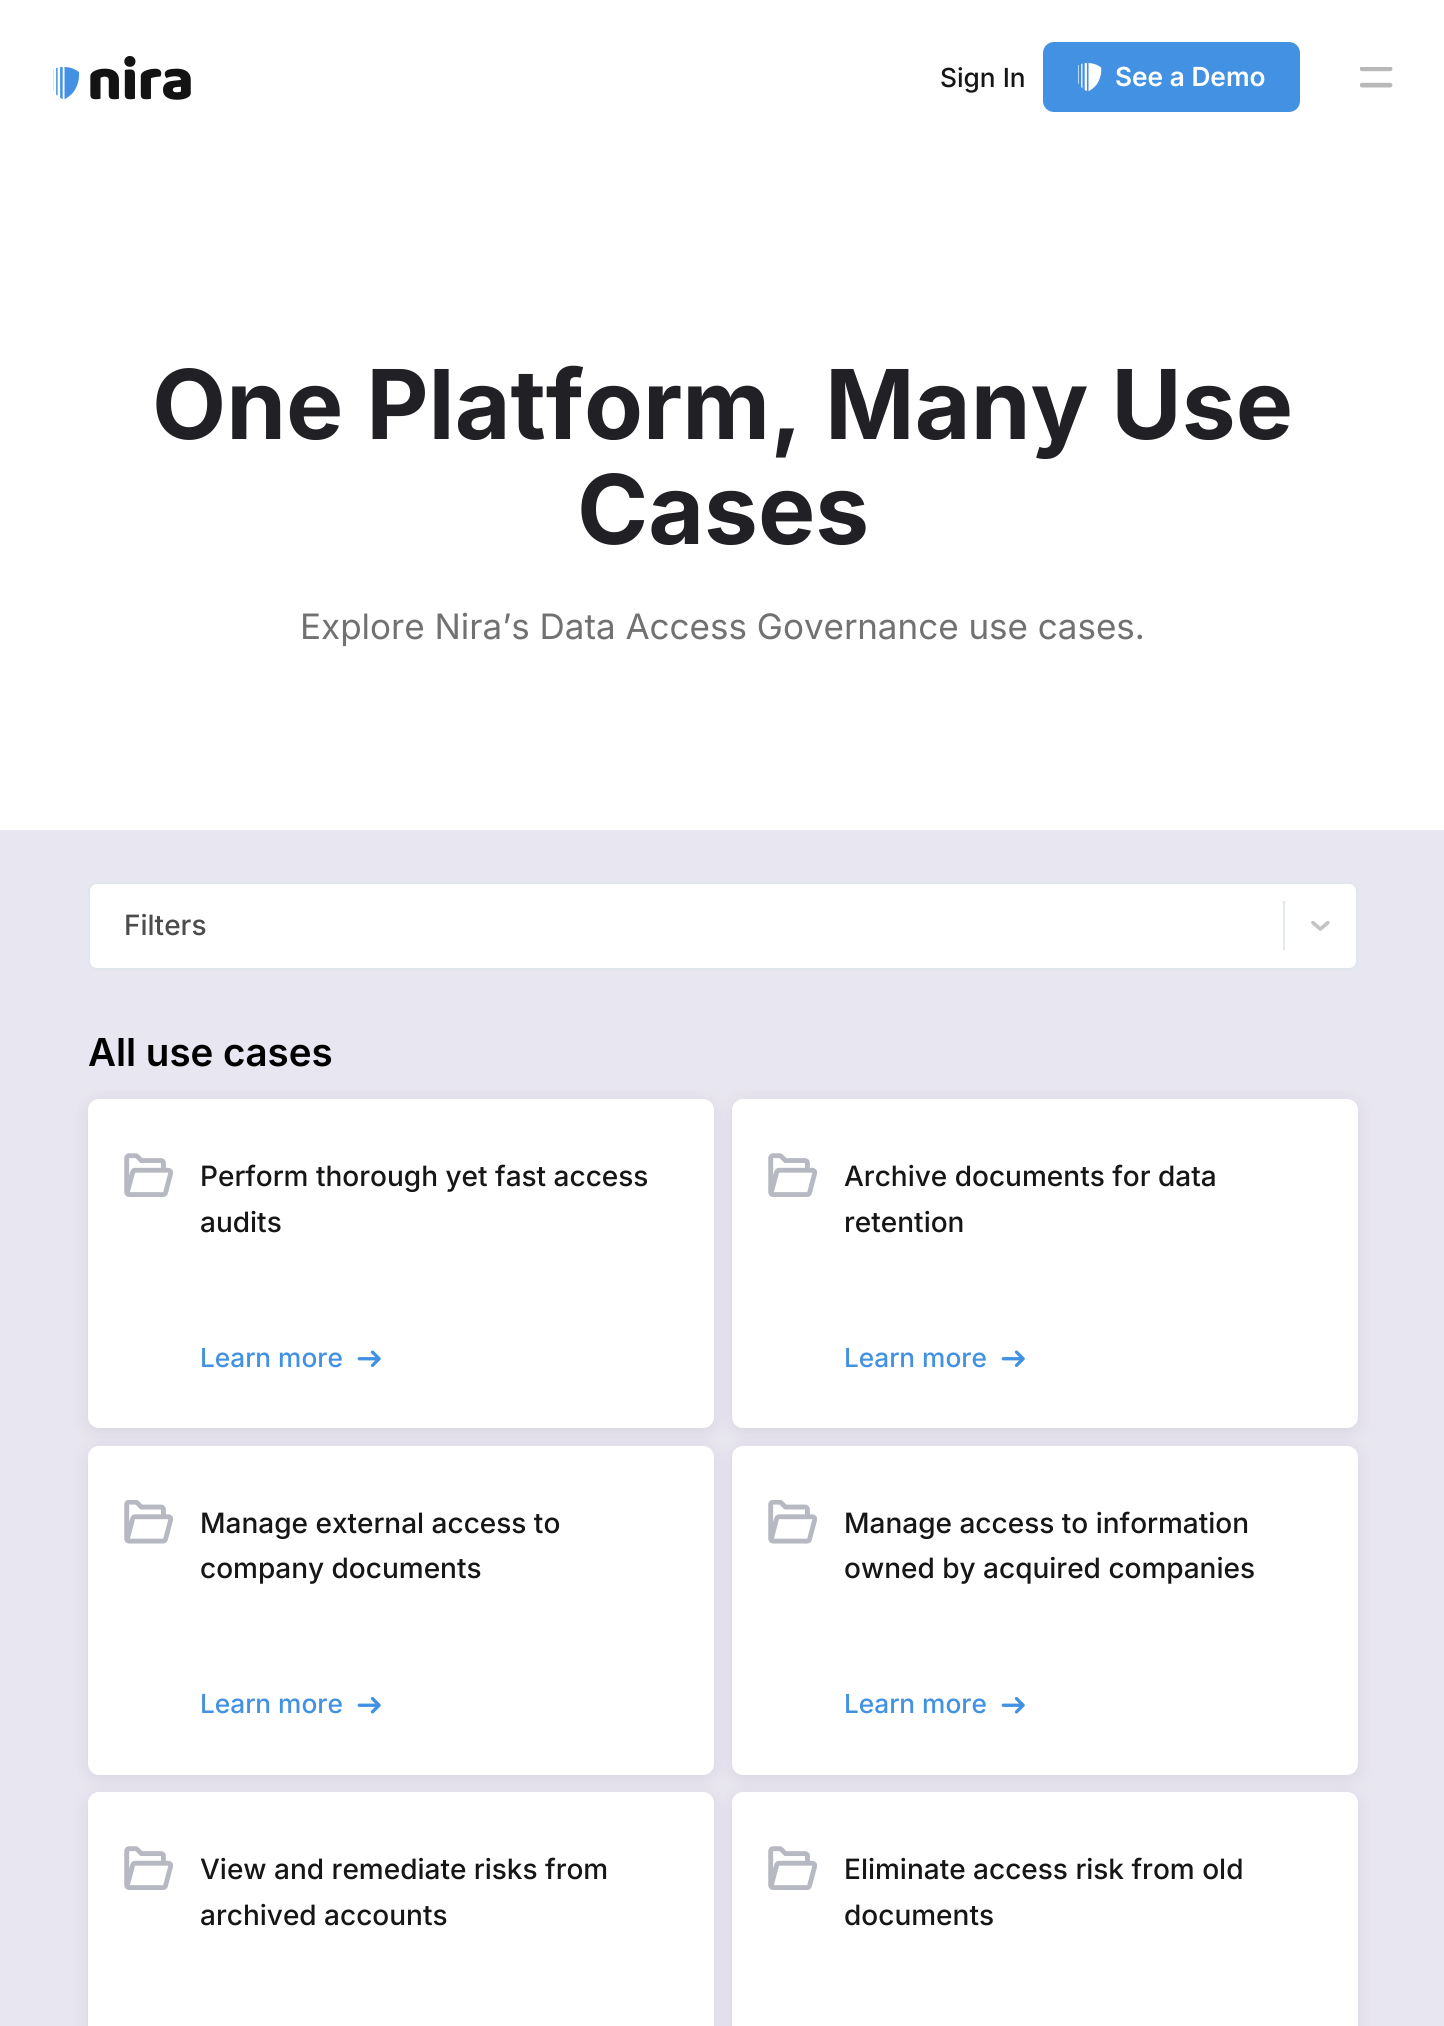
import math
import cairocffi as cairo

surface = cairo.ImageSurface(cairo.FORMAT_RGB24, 1444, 2026)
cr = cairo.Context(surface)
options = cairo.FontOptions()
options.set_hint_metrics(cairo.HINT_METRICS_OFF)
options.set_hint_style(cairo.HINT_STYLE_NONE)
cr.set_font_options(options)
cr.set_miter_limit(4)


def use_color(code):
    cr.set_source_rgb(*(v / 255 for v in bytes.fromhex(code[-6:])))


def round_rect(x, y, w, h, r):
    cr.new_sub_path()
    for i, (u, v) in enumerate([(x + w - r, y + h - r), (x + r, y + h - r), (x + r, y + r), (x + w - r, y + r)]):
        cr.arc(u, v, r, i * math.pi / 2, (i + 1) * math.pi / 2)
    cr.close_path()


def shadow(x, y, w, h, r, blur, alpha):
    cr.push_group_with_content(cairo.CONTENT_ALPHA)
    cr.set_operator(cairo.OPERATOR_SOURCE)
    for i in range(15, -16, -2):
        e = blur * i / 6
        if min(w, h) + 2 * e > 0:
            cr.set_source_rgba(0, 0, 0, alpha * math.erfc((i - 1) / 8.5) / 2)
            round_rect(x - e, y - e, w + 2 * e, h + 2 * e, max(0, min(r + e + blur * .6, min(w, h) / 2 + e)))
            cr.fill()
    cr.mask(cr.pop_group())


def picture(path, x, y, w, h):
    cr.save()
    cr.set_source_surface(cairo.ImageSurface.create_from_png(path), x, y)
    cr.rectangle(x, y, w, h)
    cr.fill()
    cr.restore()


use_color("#ffffff")
cr.paint()
picture("img1.png", 53, 56, 138, 44)
cr.select_font_face("Inter Medium")
cr.set_font_size(26.25)
use_color("#161616")
cr.move_to(940, 87)
cr.show_text("Sign In")
use_color("#4291e3")
round_rect(1043, 42, 257, 70, 11)
cr.fill()
picture("img2.png", 1078, 63, 24, 28)
cr.select_font_face("Inter SemiBold")
use_color("#ffffff")
cr.move_to(1115, 86)
cr.show_text("See a Demo")
picture("img3.png", 1360, 67, 33, 21)
cr.select_font_face("Inter", cairo.FONT_SLANT_NORMAL, cairo.FONT_WEIGHT_BOLD)
cr.set_font_size(96.25)
use_color("#212125")
cr.move_to(152, 439)
cr.show_text("One Platform, Many Use")
cr.move_to(577, 544)
cr.show_text("Cases")
cr.select_font_face("Inter")
cr.set_font_size(35)
use_color("#717171")
cr.move_to(300, 639)
cr.show_text("Explore Nira’s Data Access Governance use cases.")
use_color("#e8e6f0")
cr.rectangle(0, 830, 1444, 1196)
cr.fill()
use_color("#ffffff")
round_rect(89, 883, 1268, 86, 8)
cr.fill_preserve()
use_color("#dfe6ec")
cr.stroke()
cr.select_font_face("Inter Medium")
cr.set_font_size(28)
use_color("#4c4c4c")
cr.move_to(124, 935)
cr.show_text("Filters")
use_color("#e0e7ed")
cr.rectangle(1283, 901, 2, 49)
cr.fill()
picture("img4.png", 1311, 921, 19, 10)
cr.select_font_face("Inter SemiBold")
cr.set_font_size(38.5)
use_color("#000000")
cr.move_to(88, 1066)
cr.show_text("All use cases")
use_color("#c7c3d4")
shadow(88, 1103, 626, 329, 11, 9, 0.5)
use_color("#ffffff")
round_rect(88, 1099, 626, 329, 11)
cr.fill()
picture("img5.png", 124, 1153, 49, 44)
cr.select_font_face("Inter Medium")
cr.set_font_size(28)
use_color("#161616")
cr.move_to(200, 1186)
cr.show_text("Perform thorough yet fast access")
cr.move_to(200, 1232)
cr.show_text("audits")
cr.set_font_size(26.25)
use_color("#4291e3")
cr.move_to(200, 1367)
cr.show_text("Learn more")
picture("img6.png", 357, 1350, 24, 17)
use_color("#c7c3d4")
shadow(732, 1103, 626, 329, 11, 9, 0.5)
use_color("#ffffff")
round_rect(732, 1099, 626, 329, 11)
cr.fill()
picture("img5.png", 768, 1153, 49, 44)
cr.set_font_size(28)
use_color("#161616")
cr.move_to(844, 1186)
cr.show_text("Archive documents for data")
cr.move_to(844, 1232)
cr.show_text("retention")
cr.set_font_size(26.25)
use_color("#4291e3")
cr.move_to(844, 1367)
cr.show_text("Learn more")
picture("img6.png", 1001, 1350, 24, 17)
use_color("#c7c3d4")
shadow(88, 1449, 626, 329, 11, 9, 0.5)
use_color("#ffffff")
round_rect(88, 1446, 626, 329, 11)
cr.fill()
picture("img7.png", 124, 1500, 49, 44)
cr.set_font_size(28)
use_color("#161616")
cr.move_to(200, 1533)
cr.show_text("Manage external access to")
cr.move_to(200, 1578)
cr.show_text("company documents")
cr.set_font_size(26.25)
use_color("#4291e3")
cr.move_to(200, 1713)
cr.show_text("Learn more")
picture("img8.png", 357, 1697, 24, 17)
use_color("#c7c3d4")
shadow(732, 1449, 626, 329, 11, 9, 0.5)
use_color("#ffffff")
round_rect(732, 1446, 626, 329, 11)
cr.fill()
picture("img7.png", 768, 1500, 49, 44)
cr.set_font_size(28)
use_color("#161616")
cr.move_to(844, 1533)
cr.show_text("Manage access to information")
cr.move_to(844, 1578)
cr.show_text("owned by acquired companies")
cr.set_font_size(26.25)
use_color("#4291e3")
cr.move_to(844, 1713)
cr.show_text("Learn more")
picture("img8.png", 1001, 1697, 24, 17)
use_color("#c7c3d4")
shadow(88, 1796, 626, 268, 11, 9, 0.5)
use_color("#ffffff")
round_rect(88, 1792, 626, 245, 11)
cr.fill()
picture("img5.png", 124, 1846, 49, 44)
cr.set_font_size(28)
use_color("#161616")
cr.move_to(200, 1879)
cr.show_text("View and remediate risks from")
cr.move_to(200, 1925)
cr.show_text("archived accounts")
use_color("#c7c3d4")
shadow(732, 1796, 626, 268, 11, 9, 0.5)
use_color("#ffffff")
round_rect(732, 1792, 626, 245, 11)
cr.fill()
picture("img5.png", 768, 1846, 49, 44)
use_color("#161616")
cr.move_to(844, 1879)
cr.show_text("Eliminate access risk from old")
cr.move_to(844, 1925)
cr.show_text("documents")
surface.write_to_png("result.png")
